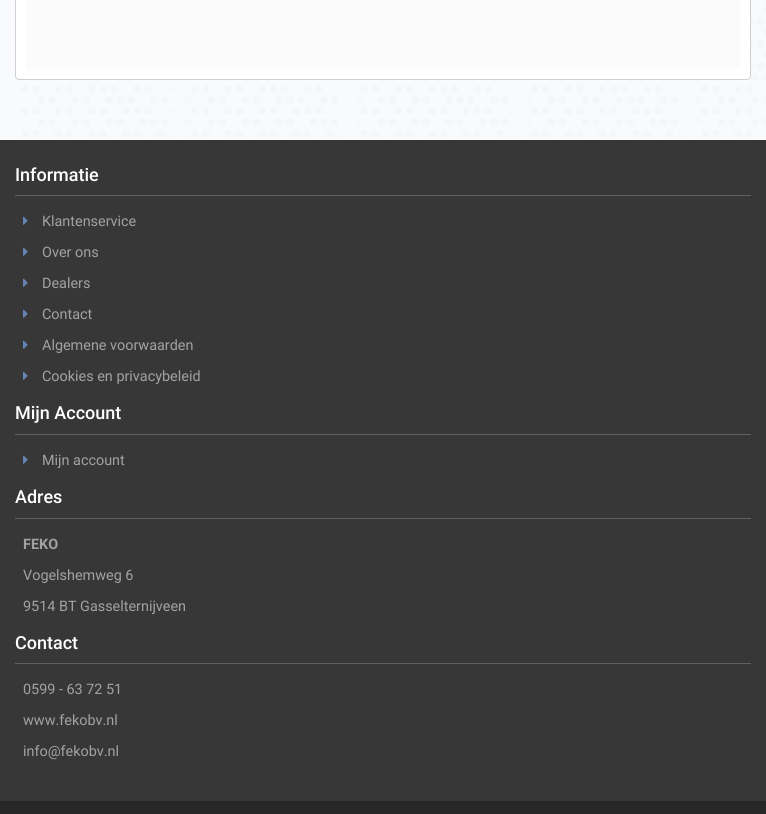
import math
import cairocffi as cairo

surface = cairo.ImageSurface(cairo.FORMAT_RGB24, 766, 814)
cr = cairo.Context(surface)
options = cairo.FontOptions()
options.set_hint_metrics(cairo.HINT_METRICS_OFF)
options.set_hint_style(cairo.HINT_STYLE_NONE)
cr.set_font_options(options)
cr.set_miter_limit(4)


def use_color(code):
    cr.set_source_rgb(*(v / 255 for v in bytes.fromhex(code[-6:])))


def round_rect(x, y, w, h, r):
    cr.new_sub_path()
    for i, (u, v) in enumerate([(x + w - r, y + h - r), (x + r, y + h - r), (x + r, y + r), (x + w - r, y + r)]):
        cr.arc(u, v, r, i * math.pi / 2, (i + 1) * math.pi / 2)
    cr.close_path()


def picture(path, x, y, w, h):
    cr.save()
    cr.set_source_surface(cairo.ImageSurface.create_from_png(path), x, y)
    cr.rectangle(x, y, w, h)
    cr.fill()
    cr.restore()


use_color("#f8fafc")
cr.paint()
picture("img1.png", 21, 0, 745, 138)
use_color("#ffffff")
round_rect(15.5, -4.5, 735, 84, 3.5)
cr.fill_preserve()
use_color("#d1cfcf")
cr.set_line_width(1)
cr.stroke()
use_color("#fbfbfb")
cr.rectangle(26, 0, 714, 39)
cr.fill()
cr.new_path()
cr.move_to(31, 39)
cr.line_to(735, 39)
cr.curve_to(738, 39, 740, 41, 740, 44)
cr.line_to(740, 69)
cr.line_to(26, 69)
cr.line_to(26, 44)
cr.curve_to(26, 41, 28, 39, 31, 39)
cr.close_path()
cr.fill()
use_color("#373737")
cr.rectangle(0, 140, 766, 661)
cr.fill()
use_color("#616161")
cr.rectangle(15, 195, 736, 1)
cr.fill()
cr.select_font_face("Roboto Medium")
cr.set_font_size(18)
use_color("#ffffff")
cr.move_to(15, 181)
cr.show_text("Informatie")
picture("img2.png", 23, 216, 5, 9)
cr.select_font_face("Roboto")
cr.set_font_size(14.4)
use_color("#a2a2a2")
cr.move_to(42, 226)
cr.show_text("Klantenservice")
picture("img2.png", 23, 247, 5, 9)
cr.move_to(42, 257)
cr.show_text("Over ons")
picture("img2.png", 23, 278, 5, 9)
cr.move_to(42, 288)
cr.show_text("Dealers")
picture("img2.png", 23, 309, 5, 9)
cr.move_to(42, 319)
cr.show_text("Contact")
picture("img2.png", 23, 340, 5, 9)
cr.move_to(42, 350)
cr.show_text("Algemene voorwaarden")
picture("img2.png", 23, 371, 5, 9)
cr.move_to(42, 381)
cr.show_text("Cookies en privacybeleid")
use_color("#616161")
cr.rectangle(15, 434, 736, 1)
cr.fill()
cr.select_font_face("Roboto Medium")
cr.set_font_size(18)
use_color("#ffffff")
cr.move_to(15, 419)
cr.show_text("Mijn Account")
picture("img2.png", 23, 455, 5, 9)
cr.select_font_face("Roboto")
cr.set_font_size(14.4)
use_color("#a2a2a2")
cr.move_to(42, 465)
cr.show_text("Mijn account")
use_color("#616161")
cr.rectangle(15, 518, 736, 1)
cr.fill()
cr.select_font_face("Roboto Medium")
cr.set_font_size(18)
use_color("#ffffff")
cr.move_to(15, 503)
cr.show_text("Adres")
cr.select_font_face("Roboto", cairo.FONT_SLANT_NORMAL, cairo.FONT_WEIGHT_BOLD)
cr.set_font_size(14.4)
use_color("#a2a2a2")
cr.move_to(23, 549)
cr.show_text("FEKO")
cr.select_font_face("Roboto")
cr.move_to(23, 580)
cr.show_text("Vogelshemweg 6")
cr.move_to(23, 611)
cr.show_text("9514 BT Gasselternijveen")
use_color("#616161")
cr.rectangle(15, 663, 736, 1)
cr.fill()
cr.select_font_face("Roboto Medium")
cr.set_font_size(18)
use_color("#ffffff")
cr.move_to(15, 649)
cr.show_text("Contact")
cr.select_font_face("Roboto")
cr.set_font_size(14.4)
use_color("#a2a2a2")
cr.move_to(23, 694)
cr.show_text("0599 - 63 72 51")
cr.move_to(23, 725)
cr.show_text("www.fekobv.nl")
cr.move_to(23, 756)
cr.show_text("info@fekobv.nl")
use_color("#272727")
cr.rectangle(0, 801, 766, 13)
cr.fill()
surface.write_to_png("result.png")
